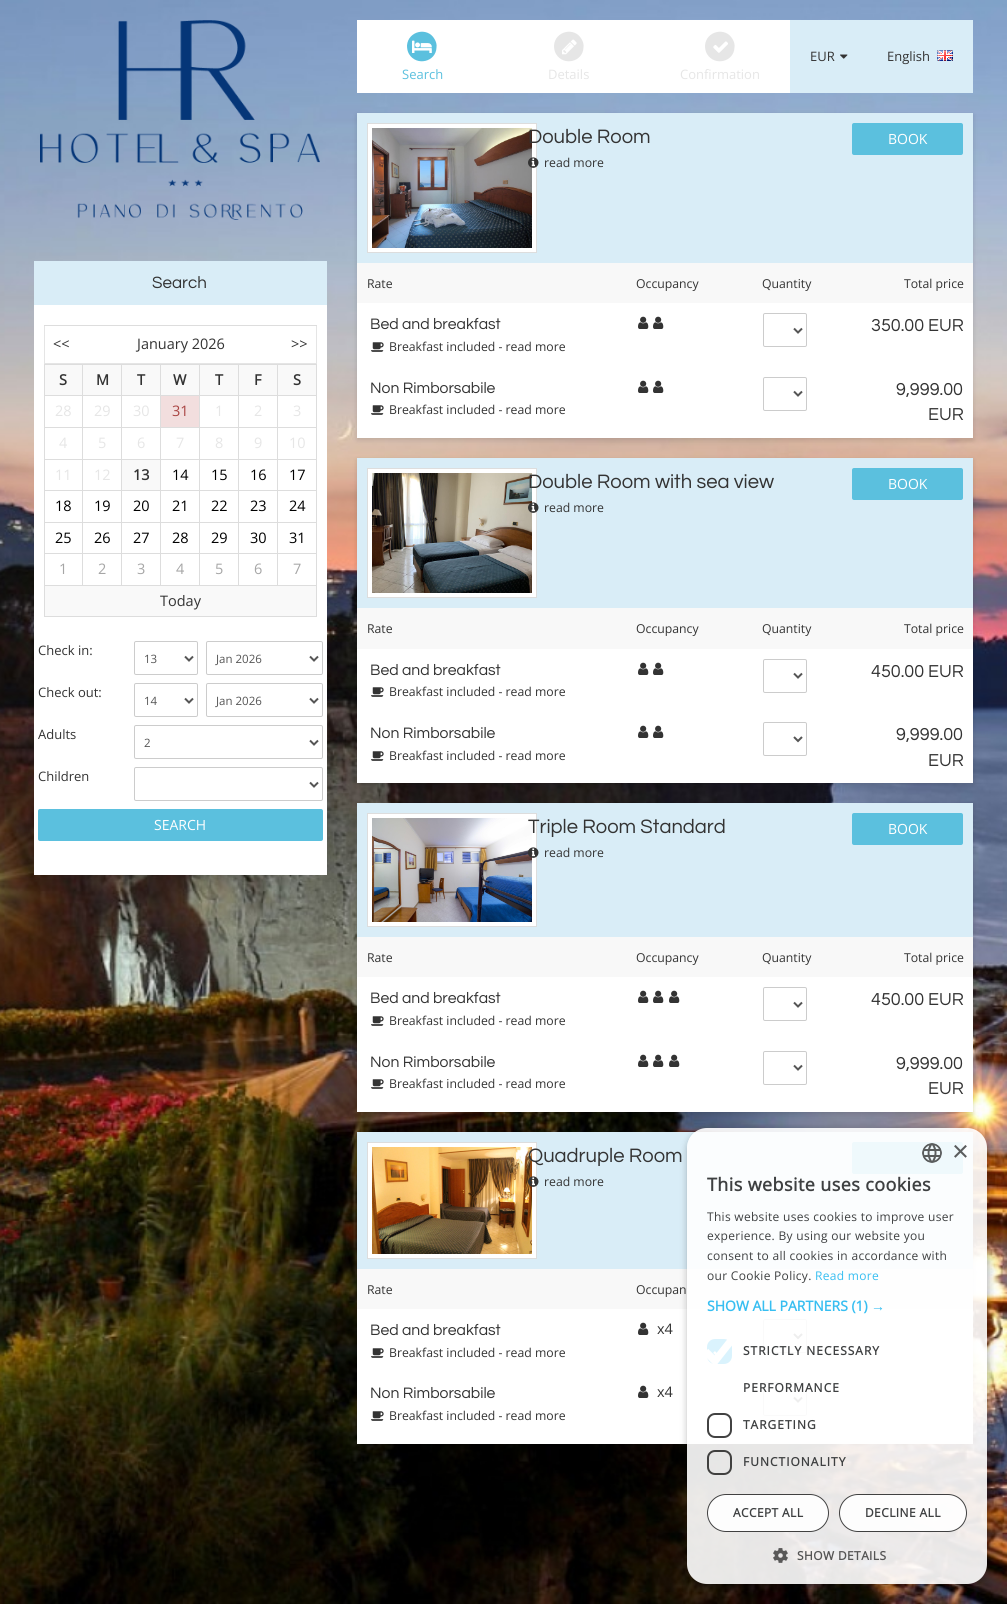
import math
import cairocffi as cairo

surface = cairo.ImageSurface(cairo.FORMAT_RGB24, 1007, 1604)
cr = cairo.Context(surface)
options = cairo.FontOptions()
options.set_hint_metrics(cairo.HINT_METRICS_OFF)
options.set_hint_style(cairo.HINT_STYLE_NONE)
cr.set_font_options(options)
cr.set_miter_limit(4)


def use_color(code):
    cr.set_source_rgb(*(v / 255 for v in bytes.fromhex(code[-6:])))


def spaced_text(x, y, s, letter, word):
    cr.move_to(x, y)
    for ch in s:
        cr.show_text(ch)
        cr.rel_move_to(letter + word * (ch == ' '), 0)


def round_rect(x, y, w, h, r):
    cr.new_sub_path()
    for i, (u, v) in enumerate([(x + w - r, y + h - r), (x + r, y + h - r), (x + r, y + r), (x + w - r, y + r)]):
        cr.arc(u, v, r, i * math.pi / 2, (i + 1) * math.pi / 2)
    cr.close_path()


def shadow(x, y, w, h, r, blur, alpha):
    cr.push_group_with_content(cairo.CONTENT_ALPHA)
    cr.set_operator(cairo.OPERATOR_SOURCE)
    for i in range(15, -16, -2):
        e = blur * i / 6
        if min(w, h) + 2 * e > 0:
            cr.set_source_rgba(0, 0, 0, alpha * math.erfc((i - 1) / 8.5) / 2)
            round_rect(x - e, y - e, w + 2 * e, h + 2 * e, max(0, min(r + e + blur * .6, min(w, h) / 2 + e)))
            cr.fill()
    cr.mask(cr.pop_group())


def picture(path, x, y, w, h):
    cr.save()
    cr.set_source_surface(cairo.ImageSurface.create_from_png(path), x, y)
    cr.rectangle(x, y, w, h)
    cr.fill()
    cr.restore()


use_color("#ffffff")
cr.paint()
picture("img1.png", 0, 0, 1007, 1604)
picture("img2.png", 40, 20, 280, 200)
use_color("#d9edf7")
cr.rectangle(34, 261, 293, 44)
cr.fill()
cr.select_font_face("Questrial")
cr.set_font_size(17)
use_color("#333333")
cr.move_to(152, 288)
cr.show_text("Search")
use_color("#ffffff")
cr.rectangle(34, 305, 293, 570)
cr.fill()
use_color("#e5e5e5")
cr.rectangle(316, 325, 1, 39)
cr.fill()
cr.rectangle(44, 363, 273, 1)
cr.fill()
cr.rectangle(44, 325, 1, 39)
cr.fill()
cr.select_font_face("Open Sans")
cr.set_font_size(14.5)
use_color("#333333")
cr.move_to(53, 349)
cr.show_text("<<")
cr.move_to(137, 349)
cr.show_text("January 2026")
use_color("#dddddd")
cr.rectangle(44, 325, 273, 1)
cr.fill()
use_color("#333333")
cr.move_to(291, 349)
cr.show_text(">>")
use_color("#dddddd")
cr.rectangle(44, 364, 273, 1)
cr.fill()
cr.rectangle(316, 364, 1, 253)
cr.fill()
cr.rectangle(44, 616, 273, 1)
cr.fill()
cr.rectangle(44, 364, 1, 253)
cr.fill()
use_color("#f9f9f9")
cr.rectangle(45, 365, 37, 30)
cr.fill()
cr.select_font_face("Open Sans", cairo.FONT_SLANT_NORMAL, cairo.FONT_WEIGHT_BOLD)
use_color("#333333")
cr.move_to(59, 385)
cr.show_text("S")
use_color("#f9f9f9")
cr.rectangle(83, 365, 38, 30)
cr.fill()
use_color("#dddddd")
cr.rectangle(277, 395, 40, 1)
cr.fill()
cr.rectangle(277, 427, 40, 1)
cr.fill()
cr.rectangle(277, 459, 40, 1)
cr.fill()
cr.rectangle(277, 490, 40, 1)
cr.fill()
cr.rectangle(277, 522, 40, 1)
cr.fill()
cr.rectangle(277, 553, 40, 1)
cr.fill()
cr.rectangle(44, 585, 273, 1)
cr.fill()
cr.rectangle(277, 553, 1, 33)
cr.fill()
cr.rectangle(238, 553, 40, 1)
cr.fill()
cr.rectangle(277, 522, 1, 32)
cr.fill()
cr.rectangle(238, 522, 40, 1)
cr.fill()
cr.rectangle(277, 490, 1, 33)
cr.fill()
cr.rectangle(238, 490, 40, 1)
cr.fill()
cr.rectangle(277, 459, 1, 32)
cr.fill()
cr.rectangle(238, 459, 40, 1)
cr.fill()
cr.rectangle(277, 427, 1, 33)
cr.fill()
cr.rectangle(238, 427, 40, 1)
cr.fill()
cr.rectangle(277, 395, 1, 33)
cr.fill()
cr.rectangle(238, 395, 40, 1)
cr.fill()
cr.rectangle(238, 553, 1, 33)
cr.fill()
cr.rectangle(199, 553, 40, 1)
cr.fill()
cr.rectangle(238, 522, 1, 32)
cr.fill()
cr.rectangle(199, 522, 40, 1)
cr.fill()
cr.rectangle(238, 490, 1, 33)
cr.fill()
cr.rectangle(199, 490, 40, 1)
cr.fill()
cr.rectangle(238, 459, 1, 32)
cr.fill()
cr.rectangle(199, 459, 40, 1)
cr.fill()
cr.rectangle(238, 427, 1, 33)
cr.fill()
cr.rectangle(199, 427, 40, 1)
cr.fill()
cr.rectangle(238, 395, 1, 33)
cr.fill()
cr.rectangle(199, 395, 40, 1)
cr.fill()
cr.rectangle(199, 553, 1, 33)
cr.fill()
cr.rectangle(160, 553, 40, 1)
cr.fill()
cr.rectangle(199, 522, 1, 32)
cr.fill()
cr.rectangle(160, 522, 40, 1)
cr.fill()
cr.rectangle(199, 490, 1, 33)
cr.fill()
cr.rectangle(160, 490, 40, 1)
cr.fill()
cr.rectangle(199, 459, 1, 32)
cr.fill()
cr.rectangle(160, 459, 40, 1)
cr.fill()
cr.rectangle(199, 427, 1, 33)
cr.fill()
cr.rectangle(160, 427, 40, 1)
cr.fill()
cr.rectangle(199, 395, 1, 33)
cr.fill()
cr.rectangle(160, 395, 40, 1)
cr.fill()
cr.rectangle(160, 553, 1, 33)
cr.fill()
cr.rectangle(121, 553, 40, 1)
cr.fill()
cr.rectangle(160, 522, 1, 32)
cr.fill()
cr.rectangle(121, 522, 40, 1)
cr.fill()
cr.rectangle(160, 490, 1, 33)
cr.fill()
cr.rectangle(121, 490, 40, 1)
cr.fill()
cr.rectangle(160, 459, 1, 32)
cr.fill()
cr.rectangle(121, 459, 40, 1)
cr.fill()
cr.rectangle(160, 427, 1, 33)
cr.fill()
cr.rectangle(121, 427, 40, 1)
cr.fill()
cr.rectangle(160, 395, 1, 33)
cr.fill()
cr.rectangle(121, 395, 40, 1)
cr.fill()
cr.rectangle(121, 553, 1, 33)
cr.fill()
cr.rectangle(82, 553, 40, 1)
cr.fill()
cr.rectangle(121, 522, 1, 32)
cr.fill()
cr.rectangle(82, 522, 40, 1)
cr.fill()
cr.rectangle(121, 490, 1, 33)
cr.fill()
cr.rectangle(82, 490, 40, 1)
cr.fill()
cr.rectangle(121, 459, 1, 32)
cr.fill()
cr.rectangle(82, 459, 40, 1)
cr.fill()
cr.rectangle(121, 427, 1, 33)
cr.fill()
cr.rectangle(82, 427, 40, 1)
cr.fill()
cr.rectangle(121, 395, 1, 33)
cr.fill()
cr.rectangle(82, 395, 40, 1)
cr.fill()
cr.rectangle(82, 553, 1, 33)
cr.fill()
cr.rectangle(44, 553, 39, 1)
cr.fill()
cr.rectangle(82, 522, 1, 32)
cr.fill()
cr.rectangle(44, 522, 39, 1)
cr.fill()
cr.rectangle(82, 490, 1, 33)
cr.fill()
cr.rectangle(44, 490, 39, 1)
cr.fill()
cr.rectangle(82, 459, 1, 32)
cr.fill()
cr.rectangle(44, 459, 39, 1)
cr.fill()
cr.rectangle(82, 427, 1, 33)
cr.fill()
cr.rectangle(44, 427, 39, 1)
cr.fill()
cr.rectangle(82, 395, 1, 33)
cr.fill()
cr.rectangle(44, 395, 39, 1)
cr.fill()
cr.rectangle(82, 364, 1, 32)
cr.fill()
use_color("#333333")
cr.move_to(96, 385)
cr.show_text("M")
use_color("#f9f9f9")
cr.rectangle(122, 365, 38, 30)
cr.fill()
use_color("#dddddd")
cr.rectangle(121, 364, 1, 32)
cr.fill()
use_color("#333333")
cr.move_to(137, 385)
cr.show_text("T")
use_color("#f9f9f9")
cr.rectangle(161, 365, 38, 30)
cr.fill()
use_color("#dddddd")
cr.rectangle(160, 364, 1, 32)
cr.fill()
use_color("#333333")
cr.move_to(173, 385)
cr.show_text("W")
use_color("#f9f9f9")
cr.rectangle(200, 365, 38, 30)
cr.fill()
use_color("#dddddd")
cr.rectangle(199, 364, 1, 32)
cr.fill()
use_color("#333333")
cr.move_to(215, 385)
cr.show_text("T")
use_color("#f9f9f9")
cr.rectangle(239, 365, 38, 30)
cr.fill()
use_color("#dddddd")
cr.rectangle(238, 364, 1, 32)
cr.fill()
use_color("#333333")
cr.move_to(254, 385)
cr.show_text("F")
use_color("#f9f9f9")
cr.rectangle(278, 365, 38, 30)
cr.fill()
use_color("#dddddd")
cr.rectangle(277, 364, 1, 32)
cr.fill()
use_color("#333333")
cr.move_to(293, 385)
cr.show_text("S")
cr.select_font_face("Open Sans")
use_color("#e6e6e6")
cr.move_to(55, 416)
cr.show_text("28")
cr.move_to(94, 416)
cr.show_text("29")
cr.move_to(133, 416)
cr.show_text("30")
use_color("#f2dede")
cr.rectangle(161, 396, 38, 31)
cr.fill()
use_color("#a94442")
cr.move_to(172, 416)
cr.show_text("31")
use_color("#e6e6e6")
cr.move_to(215, 416)
cr.show_text("1")
cr.move_to(254, 416)
cr.show_text("2")
cr.move_to(293, 416)
cr.show_text("3")
cr.move_to(59, 448)
cr.show_text("4")
cr.move_to(98, 448)
cr.show_text("5")
cr.move_to(137, 448)
cr.show_text("6")
cr.move_to(176, 448)
cr.show_text("7")
cr.move_to(215, 448)
cr.show_text("8")
cr.move_to(254, 448)
cr.show_text("9")
cr.move_to(289, 448)
cr.show_text("10")
cr.move_to(55, 480)
cr.show_text("11")
cr.move_to(94, 480)
cr.show_text("12")
use_color("#f9f9f9")
cr.rectangle(122, 460, 38, 30)
cr.fill()
cr.select_font_face("Open Sans", cairo.FONT_SLANT_NORMAL, cairo.FONT_WEIGHT_BOLD)
use_color("#333333")
cr.move_to(133, 480)
cr.show_text("13")
cr.select_font_face("Open Sans")
use_color("#000000")
cr.move_to(172, 480)
cr.show_text("14")
cr.move_to(211, 480)
cr.show_text("15")
cr.move_to(250, 480)
cr.show_text("16")
cr.move_to(289, 480)
cr.show_text("17")
cr.move_to(55, 511)
cr.show_text("18")
cr.move_to(94, 511)
cr.show_text("19")
cr.move_to(133, 511)
cr.show_text("20")
cr.move_to(172, 511)
cr.show_text("21")
cr.move_to(211, 511)
cr.show_text("22")
cr.move_to(250, 511)
cr.show_text("23")
cr.move_to(289, 511)
cr.show_text("24")
cr.move_to(55, 543)
cr.show_text("25")
cr.move_to(94, 543)
cr.show_text("26")
cr.move_to(133, 543)
cr.show_text("27")
cr.move_to(172, 543)
cr.show_text("28")
cr.move_to(211, 543)
cr.show_text("29")
cr.move_to(250, 543)
cr.show_text("30")
cr.move_to(289, 543)
cr.show_text("31")
use_color("#a6a6a6")
cr.move_to(59, 574)
cr.show_text("1")
cr.move_to(98, 574)
cr.show_text("2")
cr.move_to(137, 574)
cr.show_text("3")
cr.move_to(176, 574)
cr.show_text("4")
cr.move_to(215, 574)
cr.show_text("5")
cr.move_to(254, 574)
cr.show_text("6")
cr.move_to(293, 574)
cr.show_text("7")
use_color("#f9f9f9")
cr.rectangle(45, 586, 271, 30)
cr.fill()
use_color("#333333")
cr.move_to(160, 606)
cr.show_text("Today")
cr.set_font_size(13)
cr.move_to(38, 655)
cr.show_text("Check in:")
round_rect(134.5, 641.5, 63, 33, 1.5)
use_color("#cccccc")
cr.set_line_width(1)
cr.stroke()
cr.new_path()
cr.move_to(185, 656.5)
cr.line_to(189, 660.5)
cr.line_to(193, 656.5)
use_color("#555555")
cr.set_line_width(2)
cr.stroke()
cr.set_font_size(11.5)
cr.move_to(144, 663)
cr.show_text("13")
round_rect(206.5, 641.5, 116, 33, 1.5)
use_color("#cccccc")
cr.set_line_width(1)
cr.stroke()
cr.new_path()
cr.move_to(310, 656.5)
cr.line_to(314, 660.5)
cr.line_to(318, 656.5)
use_color("#555555")
cr.set_line_width(2)
cr.stroke()
cr.move_to(216, 663)
cr.show_text("Jan 2026")
cr.set_font_size(13)
use_color("#333333")
cr.move_to(38, 697)
cr.show_text("Check out:")
round_rect(134.5, 683.5, 63, 33, 1.5)
use_color("#cccccc")
cr.set_line_width(1)
cr.stroke()
cr.new_path()
cr.move_to(185, 698.5)
cr.line_to(189, 702.5)
cr.line_to(193, 698.5)
use_color("#555555")
cr.set_line_width(2)
cr.stroke()
cr.set_font_size(11.5)
cr.move_to(144, 705)
cr.show_text("14")
round_rect(206.5, 683.5, 116, 33, 1.5)
use_color("#cccccc")
cr.set_line_width(1)
cr.stroke()
cr.new_path()
cr.move_to(310, 698.5)
cr.line_to(314, 702.5)
cr.line_to(318, 698.5)
use_color("#555555")
cr.set_line_width(2)
cr.stroke()
cr.move_to(216, 705)
cr.show_text("Jan 2026")
cr.set_font_size(13)
use_color("#333333")
cr.move_to(38, 739)
cr.show_text("Adults")
round_rect(134.5, 725.5, 188, 33, 1.5)
use_color("#cccccc")
cr.set_line_width(1)
cr.stroke()
cr.new_path()
cr.move_to(310, 740.5)
cr.line_to(314, 744.5)
cr.line_to(318, 740.5)
use_color("#555555")
cr.set_line_width(2)
cr.stroke()
cr.set_font_size(11.5)
cr.move_to(144, 747)
cr.show_text("2")
cr.set_font_size(13)
use_color("#333333")
cr.move_to(38, 781)
cr.show_text("Children")
round_rect(134.5, 767.5, 188, 33, 1.5)
use_color("#cccccc")
cr.set_line_width(1)
cr.stroke()
cr.new_path()
cr.move_to(310, 782.5)
cr.line_to(314, 786.5)
cr.line_to(318, 782.5)
use_color("#555555")
cr.set_line_width(2)
cr.stroke()
use_color("#5bc0de")
round_rect(38, 809, 285, 32, 2)
cr.fill()
cr.set_font_size(14)
use_color("#ffffff")
cr.move_to(154, 830)
cr.show_text("SEARCH")
cr.rectangle(357, 20, 433, 73)
cr.fill()
use_color("#d9edf7")
cr.rectangle(790, 20, 183, 73)
cr.fill()
cr.set_font_size(13)
use_color("#333333")
cr.move_to(810, 61)
cr.show_text("EUR")
picture("img3.png", 840, 54, 8, 5)
cr.move_to(887, 61)
cr.show_text("English")
picture("img4.png", 937, 50, 16, 11)
use_color("#5bc0de")
cr.new_path()
cr.move_to(434.5, 39)
cr.curve_to(436, 41.5, 437, 44.5, 436.5, 47.5)
cr.curve_to(436, 62, 416.5, 66.5, 409, 54)
cr.curve_to(407.5, 51.5, 407, 48.5, 407, 45.5)
cr.curve_to(408, 31, 427.5, 26.5, 434.5, 39)
cr.close_path()
cr.fill()
picture("img5.png", 412, 40, 20, 13)
cr.move_to(402, 79)
cr.show_text("Search")
use_color("#e6e6e6")
cr.new_path()
cr.move_to(581.5, 39)
cr.curve_to(583, 41.5, 584, 44.5, 583.5, 47.5)
cr.curve_to(583, 62, 563.5, 66.5, 556, 54)
cr.curve_to(554.5, 51.5, 554, 48.5, 554, 45.5)
cr.curve_to(555, 31, 574.5, 26.5, 581.5, 39)
cr.close_path()
cr.fill()
picture("img6.png", 562, 39, 15, 16)
cr.move_to(548, 79)
cr.show_text("Details")
cr.new_path()
cr.move_to(732.5, 39)
cr.curve_to(734, 41.5, 735, 44.5, 734.5, 47.5)
cr.curve_to(734, 62, 714.5, 66.5, 707, 54)
cr.curve_to(705.5, 51.5, 705, 48.5, 705, 45.5)
cr.curve_to(706, 31, 725.5, 26.5, 732.5, 39)
cr.close_path()
cr.fill()
picture("img7.png", 713, 41, 15, 12)
cr.move_to(680, 79)
cr.show_text("Confirmation")
use_color("#000000")
shadow(357, 115, 616, 325, 0, 2.5, 0.13)
use_color("#ffffff")
cr.rectangle(357, 303, 616, 135)
cr.fill()
use_color("#d9edf7")
cr.rectangle(357, 113, 616, 150)
cr.fill()
use_color("#ffffff")
cr.rectangle(367.5, 123.5, 169, 129)
cr.fill_preserve()
use_color("#dddddd")
cr.set_line_width(1)
cr.stroke()
picture("img8.png", 372, 128, 160, 120)
cr.select_font_face("Questrial")
cr.set_font_size(20.2)
use_color("#333333")
cr.move_to(528, 143)
cr.show_text("Double Room")
picture("img9.png", 528, 157, 11, 11)
cr.select_font_face("Open Sans")
cr.set_font_size(12.25)
cr.move_to(544, 167)
cr.show_text("read more")
use_color("#5bc0de")
round_rect(852, 123, 111, 32, 2)
cr.fill()
cr.set_font_size(14)
use_color("#ffffff")
cr.move_to(888, 144)
cr.show_text("BOOK")
use_color("#f8f8f8")
cr.rectangle(357, 263, 616, 40)
cr.fill()
cr.set_font_size(12.25)
use_color("#333333")
cr.move_to(367, 288)
cr.show_text("Rate")
cr.move_to(636, 288)
cr.show_text("Occupancy")
cr.move_to(762, 288)
cr.show_text("Quantity")
cr.move_to(904, 288)
cr.show_text("Total price")
cr.select_font_face("Questrial")
cr.set_font_size(15.75)
cr.move_to(370, 329)
cr.show_text("Bed and breakfast")
picture("img10.png", 371, 342, 13, 10)
cr.select_font_face("Open Sans")
cr.set_font_size(12.25)
cr.move_to(389, 351)
cr.show_text("Breakfast included - read more")
picture("img11.png", 638, 316, 11, 13)
picture("img11.png", 653, 316, 11, 13)
round_rect(763.5, 313.5, 43, 33, 1.5)
use_color("#cccccc")
cr.stroke()
cr.new_path()
cr.move_to(794, 328.5)
cr.line_to(798, 332.5)
cr.line_to(802, 328.5)
use_color("#555555")
cr.set_line_width(2)
cr.stroke()
cr.select_font_face("Questrial")
cr.set_font_size(18)
use_color("#333333")
cr.move_to(871, 331)
cr.show_text("350.00 EUR")
cr.set_font_size(15.75)
cr.move_to(370, 393)
cr.show_text("Non Rimborsabile")
picture("img10.png", 371, 405, 13, 10)
cr.select_font_face("Open Sans")
cr.set_font_size(12.25)
cr.move_to(389, 414)
cr.show_text("Breakfast included - read more")
picture("img11.png", 638, 380, 11, 13)
picture("img11.png", 653, 380, 11, 13)
round_rect(763.5, 377.5, 43, 33, 1.5)
use_color("#cccccc")
cr.set_line_width(1)
cr.stroke()
cr.new_path()
cr.move_to(794, 391.5)
cr.line_to(798, 395.5)
cr.line_to(802, 391.5)
use_color("#555555")
cr.set_line_width(2)
cr.stroke()
cr.select_font_face("Questrial")
cr.set_font_size(18)
use_color("#333333")
cr.move_to(896, 395)
cr.show_text("9,999.00")
cr.move_to(928, 420)
cr.show_text("EUR")
use_color("#000000")
shadow(357, 460, 616, 325, 0, 2.5, 0.13)
use_color("#ffffff")
cr.rectangle(357, 649, 616, 134)
cr.fill()
use_color("#d9edf7")
cr.rectangle(357, 458, 616, 150)
cr.fill()
use_color("#ffffff")
cr.rectangle(367.5, 468.5, 169, 129)
cr.fill_preserve()
use_color("#dddddd")
cr.set_line_width(1)
cr.stroke()
picture("img12.png", 372, 473, 160, 120)
cr.set_font_size(20.2)
use_color("#333333")
cr.move_to(528, 488)
cr.show_text("Double Room with sea view")
picture("img13.png", 528, 502, 11, 11)
cr.select_font_face("Open Sans")
cr.set_font_size(12.25)
cr.move_to(544, 512)
cr.show_text("read more")
use_color("#5bc0de")
round_rect(852, 468, 111, 32, 2)
cr.fill()
cr.set_font_size(14)
use_color("#ffffff")
cr.move_to(888, 489)
cr.show_text("BOOK")
use_color("#f8f8f8")
cr.rectangle(357, 608, 616, 41)
cr.fill()
cr.set_font_size(12.25)
use_color("#333333")
cr.move_to(367, 633)
cr.show_text("Rate")
cr.move_to(636, 633)
cr.show_text("Occupancy")
cr.move_to(762, 633)
cr.show_text("Quantity")
cr.move_to(904, 633)
cr.show_text("Total price")
cr.select_font_face("Questrial")
cr.set_font_size(15.75)
cr.move_to(370, 675)
cr.show_text("Bed and breakfast")
picture("img10.png", 371, 687, 13, 10)
cr.select_font_face("Open Sans")
cr.set_font_size(12.25)
cr.move_to(389, 696)
cr.show_text("Breakfast included - read more")
picture("img11.png", 638, 662, 11, 13)
picture("img11.png", 653, 662, 11, 13)
round_rect(763.5, 659.5, 43, 33, 1.5)
use_color("#cccccc")
cr.stroke()
cr.new_path()
cr.move_to(794, 673.5)
cr.line_to(798, 677.5)
cr.line_to(802, 673.5)
use_color("#555555")
cr.set_line_width(2)
cr.stroke()
cr.select_font_face("Questrial")
cr.set_font_size(18)
use_color("#333333")
cr.move_to(871, 677)
cr.show_text("450.00 EUR")
cr.set_font_size(15.75)
cr.move_to(370, 738)
cr.show_text("Non Rimborsabile")
picture("img10.png", 371, 751, 13, 10)
cr.select_font_face("Open Sans")
cr.set_font_size(12.25)
cr.move_to(389, 760)
cr.show_text("Breakfast included - read more")
picture("img11.png", 638, 725, 11, 13)
picture("img11.png", 653, 725, 11, 13)
round_rect(763.5, 722.5, 43, 33, 1.5)
use_color("#cccccc")
cr.set_line_width(1)
cr.stroke()
cr.new_path()
cr.move_to(794, 737)
cr.line_to(798, 741)
cr.line_to(802, 737)
use_color("#555555")
cr.set_line_width(2)
cr.stroke()
cr.select_font_face("Questrial")
cr.set_font_size(18)
use_color("#333333")
cr.move_to(896, 740)
cr.show_text("9,999.00")
cr.move_to(928, 766)
cr.show_text("EUR")
use_color("#000000")
shadow(357, 805, 616, 309, 0, 2.5, 0.13)
use_color("#ffffff")
cr.rectangle(357, 977, 616, 135)
cr.fill()
use_color("#d9edf7")
cr.rectangle(357, 803, 616, 134)
cr.fill()
use_color("#ffffff")
cr.rectangle(367.5, 813.5, 169, 113)
cr.fill_preserve()
use_color("#dddddd")
cr.set_line_width(1)
cr.stroke()
picture("img14.png", 372, 818, 160, 104)
cr.set_font_size(20.2)
use_color("#333333")
cr.move_to(528, 833)
cr.show_text("Triple Room Standard")
picture("img15.png", 528, 847, 11, 11)
cr.select_font_face("Open Sans")
cr.set_font_size(12.25)
cr.move_to(544, 857)
cr.show_text("read more")
use_color("#5bc0de")
round_rect(852, 813, 111, 32, 2)
cr.fill()
cr.set_font_size(14)
use_color("#ffffff")
cr.move_to(888, 834)
cr.show_text("BOOK")
use_color("#f8f8f8")
cr.rectangle(357, 937, 616, 40)
cr.fill()
cr.set_font_size(12.25)
use_color("#333333")
cr.move_to(367, 962)
cr.show_text("Rate")
cr.move_to(636, 962)
cr.show_text("Occupancy")
cr.move_to(762, 962)
cr.show_text("Quantity")
cr.move_to(904, 962)
cr.show_text("Total price")
cr.select_font_face("Questrial")
cr.set_font_size(15.75)
cr.move_to(370, 1003)
cr.show_text("Bed and breakfast")
picture("img10.png", 371, 1016, 13, 10)
cr.select_font_face("Open Sans")
cr.set_font_size(12.25)
cr.move_to(389, 1025)
cr.show_text("Breakfast included - read more")
picture("img11.png", 638, 990, 11, 13)
picture("img11.png", 653, 990, 11, 13)
picture("img11.png", 669, 990, 11, 13)
round_rect(763.5, 987.5, 43, 33, 1.5)
use_color("#cccccc")
cr.stroke()
cr.new_path()
cr.move_to(794, 1002.5)
cr.line_to(798, 1006.5)
cr.line_to(802, 1002.5)
use_color("#555555")
cr.set_line_width(2)
cr.stroke()
cr.select_font_face("Questrial")
cr.set_font_size(18)
use_color("#333333")
cr.move_to(871, 1005)
cr.show_text("450.00 EUR")
cr.set_font_size(15.75)
cr.move_to(370, 1067)
cr.show_text("Non Rimborsabile")
picture("img10.png", 371, 1079, 13, 10)
cr.select_font_face("Open Sans")
cr.set_font_size(12.25)
cr.move_to(389, 1088)
cr.show_text("Breakfast included - read more")
picture("img11.png", 638, 1054, 11, 13)
picture("img11.png", 653, 1054, 11, 13)
picture("img11.png", 669, 1054, 11, 13)
round_rect(763.5, 1051.5, 43, 33, 1.5)
use_color("#cccccc")
cr.set_line_width(1)
cr.stroke()
cr.new_path()
cr.move_to(794, 1065.5)
cr.line_to(798, 1069.5)
cr.line_to(802, 1065.5)
use_color("#555555")
cr.set_line_width(2)
cr.stroke()
cr.select_font_face("Questrial")
cr.set_font_size(18)
use_color("#333333")
cr.move_to(896, 1069)
cr.show_text("9,999.00")
cr.move_to(928, 1094)
cr.show_text("EUR")
use_color("#000000")
shadow(357, 1134, 616, 312, 0, 2.5, 0.13)
use_color("#ffffff")
cr.rectangle(357, 1309, 616, 135)
cr.fill()
use_color("#d9edf7")
cr.rectangle(357, 1132, 616, 137)
cr.fill()
use_color("#ffffff")
cr.rectangle(367.5, 1142.5, 169, 116)
cr.fill_preserve()
use_color("#dddddd")
cr.set_line_width(1)
cr.stroke()
picture("img16.png", 372, 1147, 160, 107)
cr.set_font_size(20.2)
use_color("#333333")
cr.move_to(528, 1162)
cr.show_text("Quadruple Room")
picture("img17.png", 528, 1176, 11, 11)
cr.select_font_face("Open Sans")
cr.set_font_size(12.25)
cr.move_to(544, 1186)
cr.show_text("read more")
use_color("#5bc0de")
round_rect(852, 1142, 111, 32, 2)
cr.fill()
use_color("#f8f8f8")
cr.rectangle(357, 1269, 616, 40)
cr.fill()
use_color("#333333")
cr.move_to(367, 1294)
cr.show_text("Rate")
cr.move_to(636, 1294)
cr.show_text("Occupan")
cr.select_font_face("Questrial")
cr.set_font_size(15.75)
cr.move_to(370, 1335)
cr.show_text("Bed and breakfast")
picture("img10.png", 371, 1348, 13, 10)
cr.select_font_face("Open Sans")
cr.set_font_size(12.25)
cr.move_to(389, 1357)
cr.show_text("Breakfast included - read more")
picture("img11.png", 638, 1322, 11, 13)
cr.set_font_size(14.5)
cr.move_to(657, 1334)
cr.show_text("x4")
round_rect(763.5, 1319.5, 43, 33, 1.5)
use_color("#cccccc")
cr.stroke()
cr.new_path()
cr.move_to(794, 1334)
cr.line_to(798, 1338)
cr.line_to(802, 1334)
use_color("#555555")
cr.set_line_width(2)
cr.stroke()
cr.select_font_face("Questrial")
cr.set_font_size(15.75)
use_color("#333333")
cr.move_to(370, 1398)
cr.show_text("Non Rimborsabile")
picture("img10.png", 371, 1411, 13, 10)
cr.select_font_face("Open Sans")
cr.set_font_size(12.25)
cr.move_to(389, 1420)
cr.show_text("Breakfast included - read more")
picture("img11.png", 638, 1385, 11, 13)
cr.set_font_size(14.5)
cr.move_to(657, 1397)
cr.show_text("x4")
round_rect(763.5, 1382.5, 43, 33, 1.5)
use_color("#cccccc")
cr.set_line_width(1)
cr.stroke()
cr.new_path()
cr.move_to(794, 1397.5)
cr.line_to(798, 1401.5)
cr.line_to(802, 1397.5)
use_color("#555555")
cr.set_line_width(2)
cr.stroke()
cr.save()
cr.set_fill_rule(cairo.FILL_RULE_EVEN_ODD)
cr.new_path()
cr.move_to(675, 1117)
cr.line_to(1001, 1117)
cr.line_to(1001, 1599)
cr.line_to(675, 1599)
cr.close_path()
cr.move_to(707, 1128)
cr.line_to(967, 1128)
cr.curve_to(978, 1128, 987, 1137, 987, 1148)
cr.line_to(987, 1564)
cr.curve_to(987, 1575, 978, 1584, 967, 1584)
cr.line_to(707, 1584)
cr.curve_to(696, 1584, 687, 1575, 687, 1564)
cr.line_to(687, 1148)
cr.curve_to(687, 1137, 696, 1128, 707, 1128)
cr.close_path()
cr.clip()
use_color("#000000")
shadow(688, 1130, 300, 456, 20, 4, 0.32)
cr.restore()
cr.set_source_rgba(1, 1, 1, 0.9)
round_rect(687, 1128, 300, 456, 20)
cr.fill()
picture("img18.png", 922, 1143, 20, 20)
cr.select_font_face("Liberation Sans")
cr.set_font_size(29)
use_color("#5b5d5e")
cr.move_to(952, 1161)
cr.show_text("×")
cr.select_font_face("Open Sans", cairo.FONT_SLANT_NORMAL, cairo.FONT_WEIGHT_BOLD)
cr.set_font_size(18)
use_color("#3e4041")
spaced_text(707, 1191, "This website uses cookies", 0.4, 0)
cr.select_font_face("Open Sans")
cr.set_font_size(12)
spaced_text(707, 1221, "This website uses cookies to improve user", 0.3, 0)
spaced_text(707, 1240, "experience. By using our website you", 0.3, 0)
spaced_text(707, 1260, "consent to all cookies in accordance with", 0.3, 0)
spaced_text(707, 1280, "our Cookie Policy.", 0.3, 0)
use_color("#37bef1")
spaced_text(815, 1280, "Read more", 0.3, 0)
cr.select_font_face("Open Sans", cairo.FONT_SLANT_NORMAL, cairo.FONT_WEIGHT_BOLD)
cr.set_font_size(14)
cr.move_to(707, 1311)
cr.show_text("SHOW ALL PARTNERS (1)")
cr.select_font_face("Liberation Sans", cairo.FONT_SLANT_NORMAL, cairo.FONT_WEIGHT_BOLD)
cr.move_to(871, 1311)
cr.show_text("→")
use_color("#cbeefc")
round_rect(707, 1339, 25, 25, 8)
cr.fill()
cr.new_path()
cr.move_to(714, 1352)
cr.line_to(717.5, 1355.5)
cr.line_to(725, 1347.5)
use_color("#ffffff")
cr.set_line_width(2.6)
cr.stroke()
cr.set_source_rgba(1, 1, 1, 0.3)
round_rect(696, 1328, 47, 47, 2)
cr.fill()
cr.new_path()
cr.move_to(705.5, 1351.5)
cr.line_to(715, 1361)
cr.line_to(733.5, 1337.5)
use_color("#ffffff")
cr.set_line_width(7.5)
cr.stroke()
cr.select_font_face("Open Sans", cairo.FONT_SLANT_NORMAL, cairo.FONT_WEIGHT_BOLD)
cr.set_font_size(12)
use_color("#3e4041")
spaced_text(743, 1355, "STRICTLY NECESSARY", 1, 0)
spaced_text(743, 1392, "PERFORMANCE", 1, 0)
round_rect(708, 1414, 23, 23, 7)
use_color("#424242")
cr.set_line_width(2)
cr.stroke()
use_color("#3e4041")
spaced_text(743, 1429, "TARGETING", 1, 0)
round_rect(708, 1451, 23, 23, 7)
use_color("#40403f")
cr.stroke()
use_color("#3e4041")
spaced_text(743, 1466, "FUNCTIONALITY", 1, 0)
cr.set_source_rgba(1, 1, 1, 0.9)
round_rect(707, 1494, 122, 38, 19)
cr.fill()
round_rect(707.5, 1494.5, 121, 37, 18.5)
cr.set_source_rgba(0.176, 0.176, 0.176, 0.9)
cr.set_line_width(1)
cr.stroke()
use_color("#3e4041")
spaced_text(733, 1517, "ACCEPT ALL", 0.4, 0)
cr.set_source_rgba(1, 1, 1, 0.9)
round_rect(839, 1494, 128, 38, 19)
cr.fill()
round_rect(839.5, 1494.5, 127, 37, 18.5)
cr.set_source_rgba(0.176, 0.176, 0.176, 0.9)
cr.stroke()
use_color("#3e4041")
spaced_text(865, 1517, "DECLINE ALL", 0.4, 0)
picture("img19.png", 773, 1548, 15, 15)
use_color("#555555")
spaced_text(797, 1560, "SHOW DETAILS", 0.4, 0)
surface.write_to_png("result.png")
